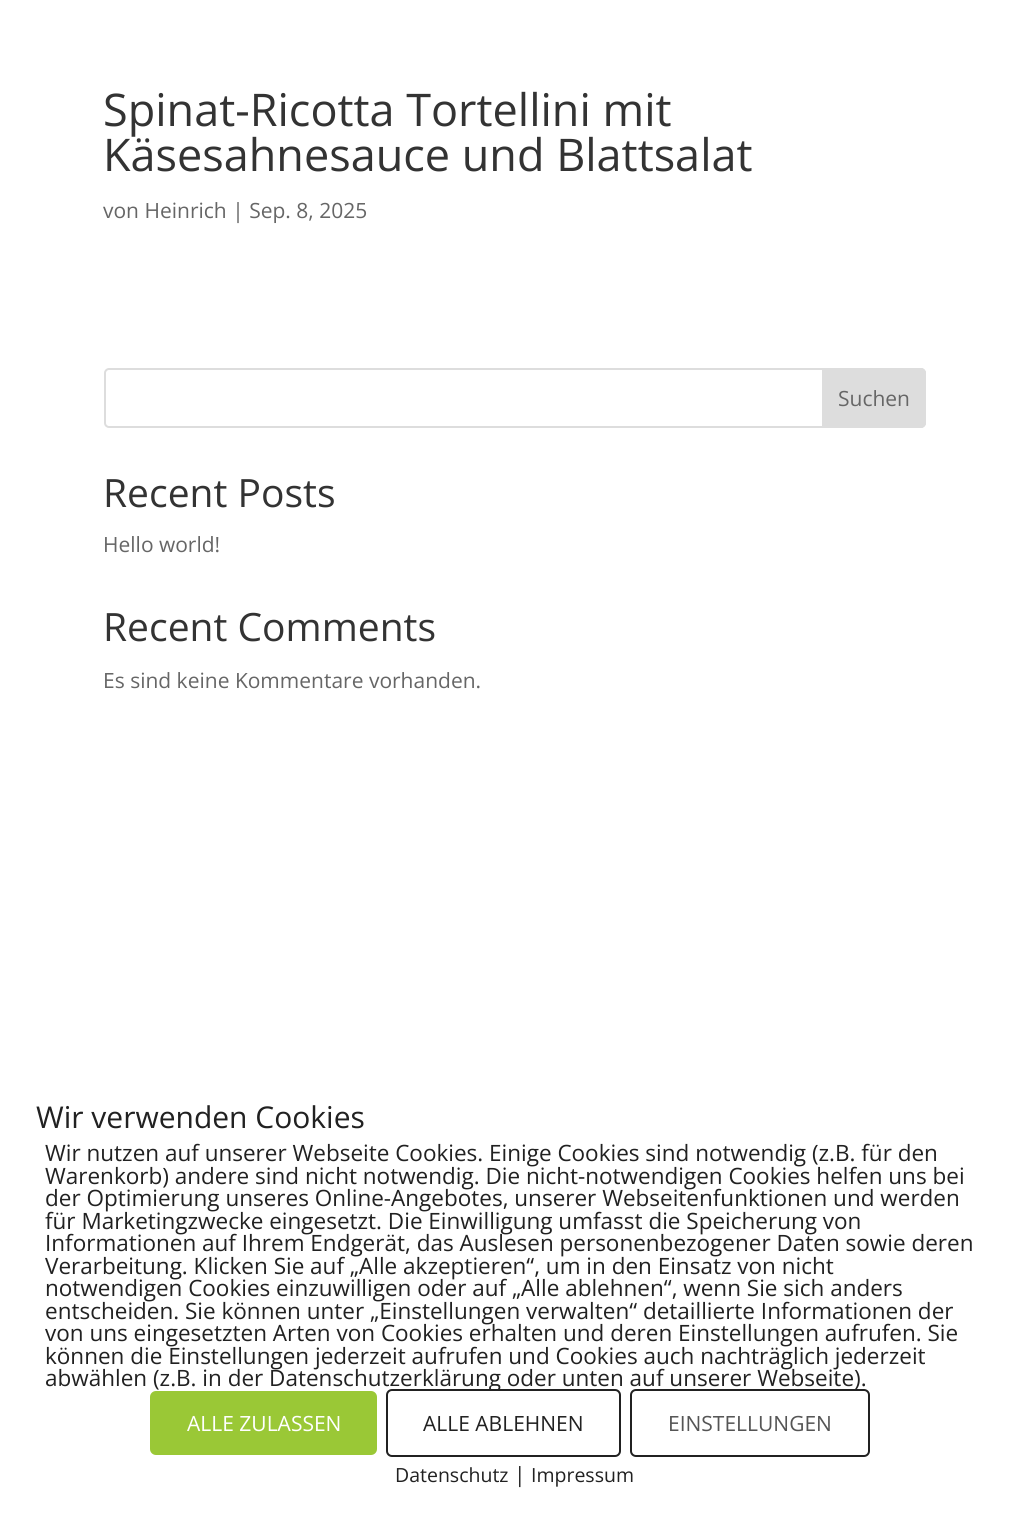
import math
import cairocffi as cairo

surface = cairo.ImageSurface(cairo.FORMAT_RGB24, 1029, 1530)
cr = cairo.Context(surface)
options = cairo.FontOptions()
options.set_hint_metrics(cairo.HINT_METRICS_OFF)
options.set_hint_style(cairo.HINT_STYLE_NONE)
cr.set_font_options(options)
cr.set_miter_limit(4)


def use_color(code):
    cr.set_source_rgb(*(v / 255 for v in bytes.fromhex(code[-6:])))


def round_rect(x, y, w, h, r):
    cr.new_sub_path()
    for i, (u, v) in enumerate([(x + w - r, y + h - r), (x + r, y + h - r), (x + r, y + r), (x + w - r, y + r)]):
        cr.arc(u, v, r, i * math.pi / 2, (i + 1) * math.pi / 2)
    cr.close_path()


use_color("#ffffff")
cr.paint()
cr.select_font_face("Open Sans")
cr.set_font_size(45)
use_color("#333333")
cr.move_to(103, 126)
cr.show_text("Spinat-Ricotta Tortellini mit")
cr.move_to(103, 171)
cr.show_text("Käsesahnesauce und Blattsalat")
cr.set_font_size(21)
use_color("#666666")
cr.move_to(103, 218)
cr.show_text("von Heinrich | Sep. 8, 2025")
round_rect(105, 369, 820, 58, 4)
use_color("#dddddd")
cr.stroke()
cr.new_path()
cr.move_to(823, 369)
cr.line_to(921, 369)
cr.curve_to(923, 369, 925, 371, 925, 373)
cr.line_to(925, 423)
cr.curve_to(925, 425, 923, 427, 921, 427)
cr.line_to(823, 427)
cr.close_path()
cr.fill_preserve()
cr.stroke()
use_color("#666666")
cr.move_to(838, 406)
cr.show_text("Suchen")
cr.set_font_size(39)
use_color("#333333")
cr.move_to(103, 507)
cr.show_text("Recent Posts")
cr.set_font_size(21)
use_color("#666666")
cr.move_to(103, 552)
cr.show_text("Hello world!")
cr.set_font_size(39)
use_color("#333333")
cr.move_to(103, 641)
cr.show_text("Recent Comments")
cr.set_font_size(21)
use_color("#666666")
cr.move_to(103, 688)
cr.show_text("Es sind keine Kommentare vorhanden.")
cr.set_font_size(30)
use_color("#212121")
cr.move_to(36, 1128)
cr.show_text("Wir verwenden Cookies")
cr.set_font_size(22.5)
cr.move_to(45, 1161)
cr.show_text("Wir nutzen auf unserer Webseite Cookies. Einige Cookies sind notwendig (z.B. für den")
cr.move_to(45, 1184)
cr.show_text("Warenkorb) andere sind nicht notwendig. Die nicht-notwendigen Cookies helfen uns bei")
cr.move_to(45, 1206)
cr.show_text("der Optimierung unseres Online-Angebotes, unserer Webseitenfunktionen und werden")
cr.move_to(45, 1229)
cr.show_text("für Marketingzwecke eingesetzt. Die Einwilligung umfasst die Speicherung von")
cr.move_to(45, 1251)
cr.show_text("Informationen auf Ihrem Endgerät, das Auslesen personenbezogener Daten sowie deren")
cr.move_to(45, 1274)
cr.show_text("Verarbeitung. Klicken Sie auf „Alle akzeptieren“, um in den Einsatz von nicht")
cr.move_to(45, 1296)
cr.show_text("notwendigen Cookies einzuwilligen oder auf „Alle ablehnen“, wenn Sie sich anders")
cr.move_to(45, 1319)
cr.show_text("entscheiden. Sie können unter „Einstellungen verwalten“ detaillierte Informationen der")
cr.move_to(45, 1341)
cr.show_text("von uns eingesetzten Arten von Cookies erhalten und deren Einstellungen aufrufen. Sie")
cr.move_to(45, 1364)
cr.show_text("können die Einstellungen jederzeit aufrufen und Cookies auch nachträglich jederzeit")
cr.move_to(45, 1386)
cr.show_text("abwählen (z.B. in der Datenschutzerklärung oder unten auf unserer Webseite).")
use_color("#9ac836")
round_rect(150, 1391, 227, 64, 6)
cr.fill()
cr.set_font_size(21)
use_color("#ffffff")
cr.move_to(187, 1431)
cr.show_text("ALLE ZULASSEN")
round_rect(387, 1390, 233, 66, 5)
cr.fill_preserve()
use_color("#212121")
cr.stroke()
cr.move_to(423, 1431)
cr.show_text("ALLE ABLEHNEN")
use_color("#ffffff")
round_rect(631, 1390, 238, 66, 5)
cr.fill_preserve()
use_color("#212121")
cr.stroke()
use_color("#555555")
cr.move_to(668, 1431)
cr.show_text("EINSTELLUNGEN")
cr.set_font_size(19.5)
use_color("#212121")
cr.move_to(395, 1482)
cr.show_text("Datenschutz")
cr.set_font_size(21)
cr.move_to(514, 1482)
cr.show_text("|")
cr.set_font_size(19.5)
cr.move_to(531, 1482)
cr.show_text("Impressum")
surface.write_to_png("result.png")
